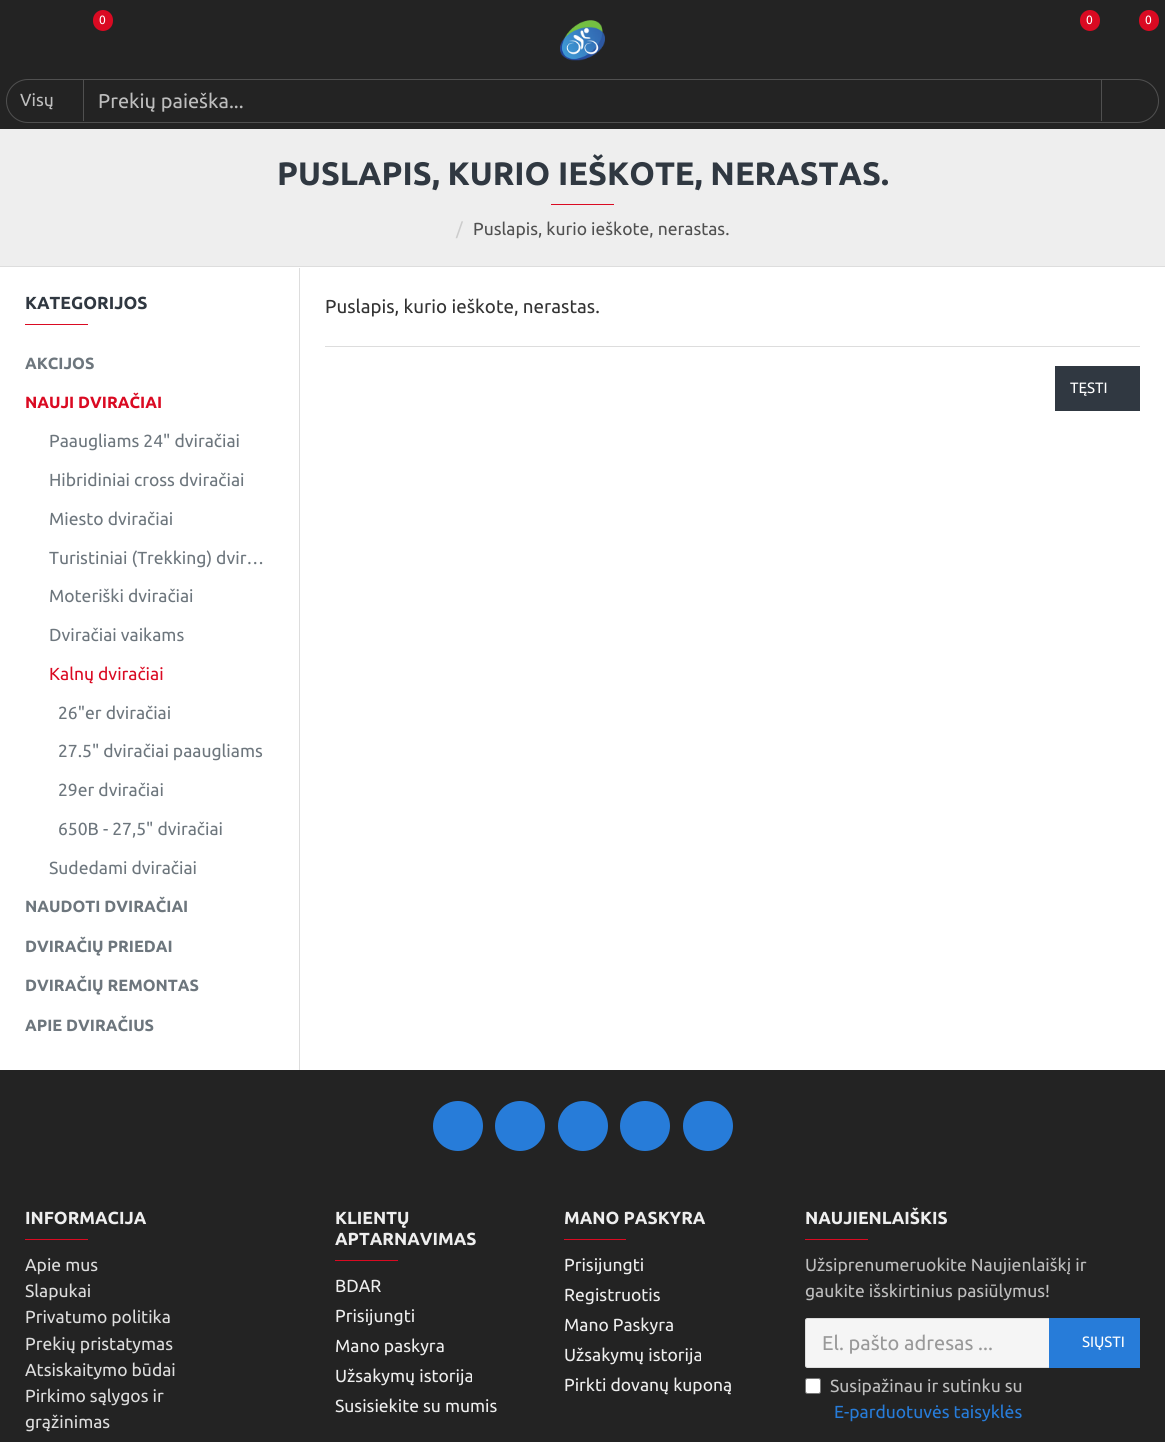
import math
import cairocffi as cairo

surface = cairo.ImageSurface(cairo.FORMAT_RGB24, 1165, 1442)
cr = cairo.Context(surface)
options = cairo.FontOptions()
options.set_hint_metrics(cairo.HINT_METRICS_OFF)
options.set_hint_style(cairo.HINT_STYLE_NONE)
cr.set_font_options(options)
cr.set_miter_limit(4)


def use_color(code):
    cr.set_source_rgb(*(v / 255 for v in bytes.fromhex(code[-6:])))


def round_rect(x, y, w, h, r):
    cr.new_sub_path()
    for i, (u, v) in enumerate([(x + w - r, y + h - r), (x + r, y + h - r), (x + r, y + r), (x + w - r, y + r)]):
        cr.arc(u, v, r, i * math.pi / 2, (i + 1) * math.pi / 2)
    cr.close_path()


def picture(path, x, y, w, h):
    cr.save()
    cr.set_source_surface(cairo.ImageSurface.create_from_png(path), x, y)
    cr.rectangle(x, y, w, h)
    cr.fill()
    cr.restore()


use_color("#ffffff")
cr.paint()
use_color("#232323")
cr.rectangle(0, 0, 1165, 129)
cr.fill()
use_color("#da0a22")
round_rect(93, 10, 20, 21, 10)
cr.fill()
cr.select_font_face("Ubuntu")
cr.set_font_size(12)
use_color("#ffffff")
cr.move_to(99, 24)
cr.show_text("0")
picture("img1.png", 560, 20, 45, 41)
use_color("#da0a22")
round_rect(1080, 10, 20, 21, 10)
cr.fill()
use_color("#ffffff")
cr.move_to(1086, 24)
cr.show_text("0")
use_color("#da0a22")
round_rect(1139, 10, 20, 21, 10)
cr.fill()
use_color("#ffffff")
cr.move_to(1145, 24)
cr.show_text("0")
round_rect(6.5, 79.5, 1152, 43, 21.5)
use_color("#505050")
cr.set_line_width(1)
cr.stroke()
cr.rectangle(83, 80, 1, 41)
cr.fill()
cr.set_font_size(17.5)
use_color("#bebebe")
cr.move_to(20, 106)
cr.show_text("Visų")
cr.set_font_size(20)
cr.move_to(98, 108)
cr.show_text("Prekių paieška...")
use_color("#505050")
cr.rectangle(1101, 80, 1, 41)
cr.fill()
use_color("#eeeeee")
cr.rectangle(0, 129, 1165, 137)
cr.fill()
cr.select_font_face("Ubuntu", cairo.FONT_SLANT_NORMAL, cairo.FONT_WEIGHT_BOLD)
cr.set_font_size(32.5)
use_color("#303841")
cr.move_to(277, 185)
cr.show_text("PUSLAPIS, KURIO IEŠKOTE, NERASTAS.")
use_color("#da0a22")
cr.rectangle(551, 204, 63, 1)
cr.fill()
use_color("#dddddd")
cr.rectangle(0, 266, 1165, 1)
cr.fill()
cr.select_font_face("Ubuntu")
cr.set_font_size(17.5)
use_color("#cccccc")
cr.move_to(456, 235)
cr.show_text("/")
use_color("#505050")
cr.move_to(473, 235)
cr.show_text("Puslapis, kurio ieškote, nerastas.")
use_color("#dddddd")
cr.rectangle(299, 268, 1, 802)
cr.fill()
cr.select_font_face("Ubuntu", cairo.FONT_SLANT_NORMAL, cairo.FONT_WEIGHT_BOLD)
use_color("#303841")
cr.move_to(25, 309)
cr.show_text("KATEGORIJOS")
use_color("#da0a22")
cr.rectangle(25, 324, 63, 1)
cr.fill()
cr.set_font_size(16.25)
use_color("#6d767d")
cr.move_to(25, 369)
cr.show_text("AKCIJOS")
use_color("#da0a22")
cr.move_to(25, 408)
cr.show_text("NAUJI DVIRAČIAI")
cr.select_font_face("Ubuntu")
cr.set_font_size(17.5)
use_color("#6d767d")
cr.move_to(49, 447)
cr.show_text("Paaugliams 24\" dviračiai")
cr.move_to(49, 486)
cr.show_text("Hibridiniai cross dviračiai")
cr.move_to(49, 525)
cr.show_text("Miesto dviračiai")
cr.move_to(49, 564)
cr.show_text("Turistiniai (Trekking) dvir…")
cr.move_to(49, 602)
cr.show_text("Moteriški dviračiai")
cr.move_to(49, 641)
cr.show_text("Dviračiai vaikams")
use_color("#da0a22")
cr.move_to(49, 680)
cr.show_text("Kalnų dviračiai")
use_color("#6d767d")
cr.move_to(58, 719)
cr.show_text("26\"er dviračiai")
cr.move_to(58, 757)
cr.show_text("27.5\" dviračiai paaugliams")
cr.move_to(58, 796)
cr.show_text("29er dviračiai")
cr.move_to(58, 835)
cr.show_text("650B - 27,5\" dviračiai")
cr.move_to(49, 874)
cr.show_text("Sudedami dviračiai")
cr.select_font_face("Ubuntu", cairo.FONT_SLANT_NORMAL, cairo.FONT_WEIGHT_BOLD)
cr.set_font_size(16.25)
cr.move_to(25, 912)
cr.show_text("NAUDOTI DVIRAČIAI")
cr.move_to(25, 952)
cr.show_text("DVIRAČIŲ PRIEDAI")
cr.move_to(25, 991)
cr.show_text("DVIRAČIŲ REMONTAS")
cr.move_to(25, 1031)
cr.show_text("APIE DVIRAČIUS")
cr.select_font_face("Ubuntu")
cr.set_font_size(18.75)
use_color("#333333")
cr.move_to(325, 313)
cr.show_text("Puslapis, kurio ieškote, nerastas.")
use_color("#dddddd")
cr.rectangle(325, 346, 815, 1)
cr.fill()
use_color("#303841")
cr.rectangle(1055, 366, 85, 45)
cr.fill()
cr.set_font_size(15)
use_color("#ffffff")
cr.move_to(1070, 393)
cr.show_text("TĘSTI")
use_color("#232323")
cr.rectangle(0, 1070, 1165, 372)
cr.fill()
use_color("#277cd9")
cr.arc(458, 1126, 25, 0, 2 * math.pi)
cr.fill()
cr.arc(520, 1126, 25, 0, 2 * math.pi)
cr.fill()
cr.arc(583, 1126, 25, 0, 2 * math.pi)
cr.fill()
cr.arc(645, 1126, 25, 0, 2 * math.pi)
cr.fill()
cr.arc(708, 1126, 25, 0, 2 * math.pi)
cr.fill()
cr.select_font_face("Ubuntu", cairo.FONT_SLANT_NORMAL, cairo.FONT_WEIGHT_BOLD)
cr.set_font_size(17.5)
use_color("#eeeeee")
cr.move_to(25, 1224)
cr.show_text("INFORMACIJA")
use_color("#da0a22")
cr.rectangle(25, 1239, 63, 1)
cr.fill()
cr.select_font_face("Ubuntu")
use_color("#dddddd")
cr.move_to(25, 1271)
cr.show_text("Apie mus")
cr.move_to(25, 1297)
cr.show_text("Slapukai")
cr.move_to(25, 1323)
cr.show_text("Privatumo politika")
cr.move_to(25, 1350)
cr.show_text("Prekių pristatymas")
cr.move_to(25, 1376)
cr.show_text("Atsiskaitymo būdai")
cr.move_to(25, 1402)
cr.show_text("Pirkimo sąlygos ir")
cr.move_to(25, 1428)
cr.show_text("grąžinimas")
cr.select_font_face("Ubuntu", cairo.FONT_SLANT_NORMAL, cairo.FONT_WEIGHT_BOLD)
use_color("#eeeeee")
cr.move_to(335, 1224)
cr.show_text("KLIENTŲ")
cr.move_to(335, 1245)
cr.show_text("APTARNAVIMAS")
use_color("#da0a22")
cr.rectangle(335, 1260, 63, 1)
cr.fill()
cr.select_font_face("Ubuntu")
use_color("#eeeeee")
cr.move_to(335, 1292)
cr.show_text("BDAR")
cr.move_to(335, 1322)
cr.show_text("Prisijungti")
cr.move_to(335, 1352)
cr.show_text("Mano paskyra")
cr.move_to(335, 1382)
cr.show_text("Užsakymų istorija")
cr.move_to(335, 1412)
cr.show_text("Susisiekite su mumis")
cr.select_font_face("Ubuntu", cairo.FONT_SLANT_NORMAL, cairo.FONT_WEIGHT_BOLD)
cr.move_to(564, 1224)
cr.show_text("MANO PASKYRA")
use_color("#da0a22")
cr.rectangle(564, 1239, 62, 1)
cr.fill()
cr.select_font_face("Ubuntu")
use_color("#eeeeee")
cr.move_to(564, 1271)
cr.show_text("Prisijungti")
cr.move_to(564, 1301)
cr.show_text("Registruotis")
cr.move_to(564, 1331)
cr.show_text("Mano Paskyra")
cr.move_to(564, 1361)
cr.show_text("Užsakymų istorija")
cr.move_to(564, 1391)
cr.show_text("Pirkti dovanų kuponą")
cr.select_font_face("Ubuntu", cairo.FONT_SLANT_NORMAL, cairo.FONT_WEIGHT_BOLD)
cr.move_to(805, 1224)
cr.show_text("NAUJIENLAIŠKIS")
use_color("#da0a22")
cr.rectangle(805, 1239, 63, 1)
cr.fill()
cr.select_font_face("Ubuntu")
use_color("#bebebe")
cr.move_to(805, 1271)
cr.show_text("Užsiprenumeruokite Naujienlaiškį ir")
cr.move_to(805, 1297)
cr.show_text("gaukite išskirtinius pasiūlymus!")
use_color("#f5f5f5")
round_rect(805.5, 1318.5, 334, 49, 2)
cr.fill_preserve()
use_color("#dddddd")
cr.stroke()
cr.set_font_size(20)
use_color("#999999")
cr.move_to(822, 1350)
cr.show_text("El. pašto adresas ...")
use_color("#277cd9")
cr.rectangle(1049, 1318, 91, 50)
cr.fill()
cr.set_font_size(15)
use_color("#ffffff")
cr.move_to(1082, 1347)
cr.show_text("SIŲSTI")
round_rect(805.5, 1378.5, 15, 15, 2)
cr.fill_preserve()
use_color("#767676")
cr.stroke()
cr.set_font_size(17.5)
use_color("#bebebe")
cr.move_to(830, 1392)
cr.show_text("Susipažinau ir sutinku su")
use_color("#277cd9")
cr.move_to(834, 1418)
cr.show_text("E-parduotuvės taisyklės")
surface.write_to_png("result.png")
